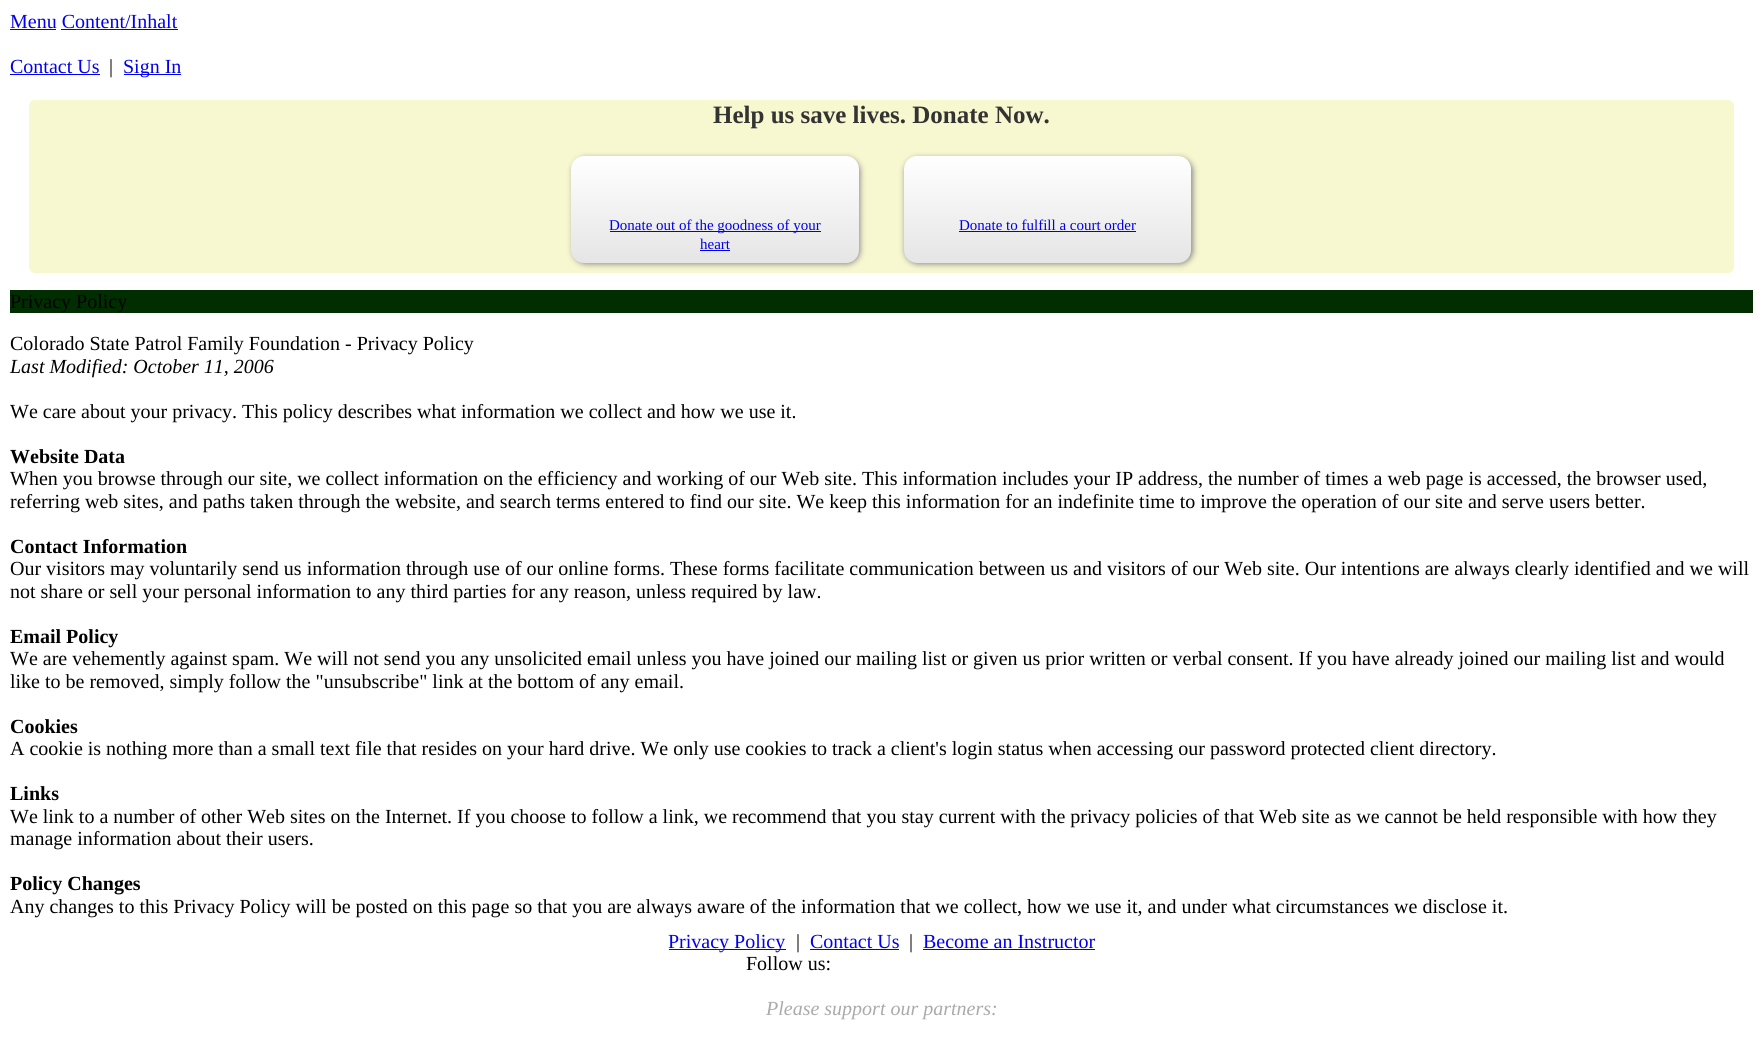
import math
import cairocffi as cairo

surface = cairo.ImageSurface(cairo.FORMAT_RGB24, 1762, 1048)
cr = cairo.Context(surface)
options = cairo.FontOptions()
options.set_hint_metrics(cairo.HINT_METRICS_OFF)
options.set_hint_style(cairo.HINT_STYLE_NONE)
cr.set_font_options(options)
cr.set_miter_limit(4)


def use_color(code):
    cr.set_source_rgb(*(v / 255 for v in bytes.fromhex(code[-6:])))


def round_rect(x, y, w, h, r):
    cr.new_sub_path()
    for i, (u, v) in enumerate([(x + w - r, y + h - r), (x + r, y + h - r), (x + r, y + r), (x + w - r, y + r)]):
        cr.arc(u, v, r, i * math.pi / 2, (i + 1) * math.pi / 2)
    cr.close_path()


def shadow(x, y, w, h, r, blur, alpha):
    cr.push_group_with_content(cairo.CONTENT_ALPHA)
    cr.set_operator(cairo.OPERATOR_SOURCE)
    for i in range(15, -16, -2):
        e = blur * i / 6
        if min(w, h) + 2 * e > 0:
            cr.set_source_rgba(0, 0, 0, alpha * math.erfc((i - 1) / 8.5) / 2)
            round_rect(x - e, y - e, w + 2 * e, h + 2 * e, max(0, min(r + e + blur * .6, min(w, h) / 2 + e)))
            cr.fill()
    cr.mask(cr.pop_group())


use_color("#ffffff")
cr.paint()
cr.select_font_face("Liberation Serif")
cr.set_font_size(20)
use_color("#0000ee")
cr.move_to(10, 28)
cr.show_text("Menu Content/Inhalt")
cr.rectangle(10, 29, 46, 1)
cr.fill()
cr.rectangle(61, 29, 117, 1)
cr.fill()
cr.move_to(10, 73)
cr.show_text("Contact Us")
cr.rectangle(10, 74, 90, 1)
cr.fill()
use_color("#000000")
cr.move_to(109, 73)
cr.show_text("|")
use_color("#0000ee")
cr.rectangle(124, 74, 57, 1)
cr.fill()
cr.move_to(123, 73)
cr.show_text("Sign In")
use_color("#f7f7d0")
round_rect(29, 100, 1705, 173, 6)
cr.fill()
cr.select_font_face("Liberation Serif", cairo.FONT_SLANT_NORMAL, cairo.FONT_WEIGHT_BOLD)
cr.set_font_size(25)
use_color("#333333")
cr.move_to(713, 123)
cr.show_text("Help us save lives. Donate Now.")
use_color("#888888")
shadow(573, 158, 287, 106, 13, 3, 1)
gradient = cairo.LinearGradient(715, 156, 715, 263)
gradient.add_color_stop_rgba(0, 1, 1, 1, 1)
gradient.add_color_stop_rgba(1, 0.898, 0.898, 0.898, 1)
cr.set_source(gradient)
round_rect(571, 156, 288, 107, 13)
cr.fill()
use_color("#0000ee")
cr.rectangle(610, 231, 211, 1)
cr.fill()
cr.select_font_face("Liberation Serif")
cr.set_font_size(15)
cr.move_to(609, 230)
cr.show_text("Donate out of the goodness of your")
cr.move_to(700, 249)
cr.show_text("heart")
cr.rectangle(700, 250, 30, 1)
cr.fill()
use_color("#888888")
shadow(905, 158, 288, 106, 13, 3, 1)
gradient = cairo.LinearGradient(1048, 156, 1048, 263)
gradient.add_color_stop_rgba(0, 1, 1, 1, 1)
gradient.add_color_stop_rgba(1, 0.898, 0.898, 0.898, 1)
cr.set_source(gradient)
round_rect(904, 156, 287, 107, 13)
cr.fill()
use_color("#0000ee")
cr.move_to(959, 230)
cr.show_text("Donate to fulfill a court order")
cr.rectangle(959, 231, 177, 1)
cr.fill()
use_color("#002e00")
cr.rectangle(10, 290, 1743, 23)
cr.fill()
cr.set_font_size(20)
use_color("#000000")
cr.move_to(10, 308)
cr.show_text("Privacy Policy")
cr.move_to(10, 350)
cr.show_text("Colorado State Patrol Family Foundation - Privacy Policy")
cr.select_font_face("Liberation Serif", cairo.FONT_SLANT_ITALIC)
cr.move_to(10, 373)
cr.show_text("Last Modified: October 11, 2006")
cr.select_font_face("Liberation Serif")
cr.move_to(10, 418)
cr.show_text("We care about your privacy. This policy describes what information we collect and how we use it.")
cr.select_font_face("Liberation Serif", cairo.FONT_SLANT_NORMAL, cairo.FONT_WEIGHT_BOLD)
cr.move_to(10, 463)
cr.show_text("Website Data")
cr.select_font_face("Liberation Serif")
cr.move_to(10, 485)
cr.show_text("When you browse through our site, we collect information on the efficiency and working of our Web site. This information includes your IP address, the number of times a web page is accessed, the browser used,")
cr.move_to(10, 508)
cr.show_text("referring web sites, and paths taken through the website, and search terms entered to find our site. We keep this information for an indefinite time to improve the operation of our site and serve users better.")
cr.select_font_face("Liberation Serif", cairo.FONT_SLANT_NORMAL, cairo.FONT_WEIGHT_BOLD)
cr.move_to(10, 553)
cr.show_text("Contact Information")
cr.select_font_face("Liberation Serif")
cr.move_to(10, 575)
cr.show_text("Our visitors may voluntarily send us information through use of our online forms. These forms facilitate communication between us and visitors of our Web site. Our intentions are always clearly identified and we will")
cr.move_to(10, 598)
cr.show_text("not share or sell your personal information to any third parties for any reason, unless required by law.")
cr.select_font_face("Liberation Serif", cairo.FONT_SLANT_NORMAL, cairo.FONT_WEIGHT_BOLD)
cr.move_to(10, 643)
cr.show_text("Email Policy")
cr.select_font_face("Liberation Serif")
cr.move_to(10, 665)
cr.show_text("We are vehemently against spam. We will not send you any unsolicited email unless you have joined our mailing list or given us prior written or verbal consent. If you have already joined our mailing list and would")
cr.move_to(10, 688)
cr.show_text("like to be removed, simply follow the \"unsubscribe\" link at the bottom of any email.")
cr.select_font_face("Liberation Serif", cairo.FONT_SLANT_NORMAL, cairo.FONT_WEIGHT_BOLD)
cr.move_to(10, 733)
cr.show_text("Cookies")
cr.select_font_face("Liberation Serif")
cr.move_to(10, 755)
cr.show_text("A cookie is nothing more than a small text file that resides on your hard drive. We only use cookies to track a client's login status when accessing our password protected client directory.")
cr.select_font_face("Liberation Serif", cairo.FONT_SLANT_NORMAL, cairo.FONT_WEIGHT_BOLD)
cr.move_to(10, 800)
cr.show_text("Links")
cr.select_font_face("Liberation Serif")
cr.move_to(10, 823)
cr.show_text("We link to a number of other Web sites on the Internet. If you choose to follow a link, we recommend that you stay current with the privacy policies of that Web site as we cannot be held responsible with how they")
cr.move_to(10, 845)
cr.show_text("manage information about their users.")
cr.select_font_face("Liberation Serif", cairo.FONT_SLANT_NORMAL, cairo.FONT_WEIGHT_BOLD)
cr.move_to(10, 890)
cr.show_text("Policy Changes")
cr.select_font_face("Liberation Serif")
cr.move_to(10, 913)
cr.show_text("Any changes to this Privacy Policy will be posted on this page so that you are always aware of the information that we collect, how we use it, and under what circumstances we disclose it.")
use_color("#0000ee")
cr.rectangle(669, 949, 117, 1)
cr.fill()
cr.move_to(668, 948)
cr.show_text("Privacy Policy")
use_color("#000000")
cr.move_to(796, 948)
cr.show_text("|")
use_color("#0000ee")
cr.move_to(810, 948)
cr.show_text("Contact Us")
cr.rectangle(810, 949, 89, 1)
cr.fill()
use_color("#000000")
cr.move_to(909, 948)
cr.show_text("|")
use_color("#0000ee")
cr.move_to(923, 948)
cr.show_text("Become an Instructor")
cr.rectangle(923, 949, 172, 1)
cr.fill()
use_color("#000000")
cr.move_to(746, 970)
cr.show_text("Follow us:")
cr.select_font_face("Liberation Serif", cairo.FONT_SLANT_ITALIC)
use_color("#aaaaaa")
cr.move_to(766, 1015)
cr.show_text("Please support our partners:")
surface.write_to_png("result.png")
